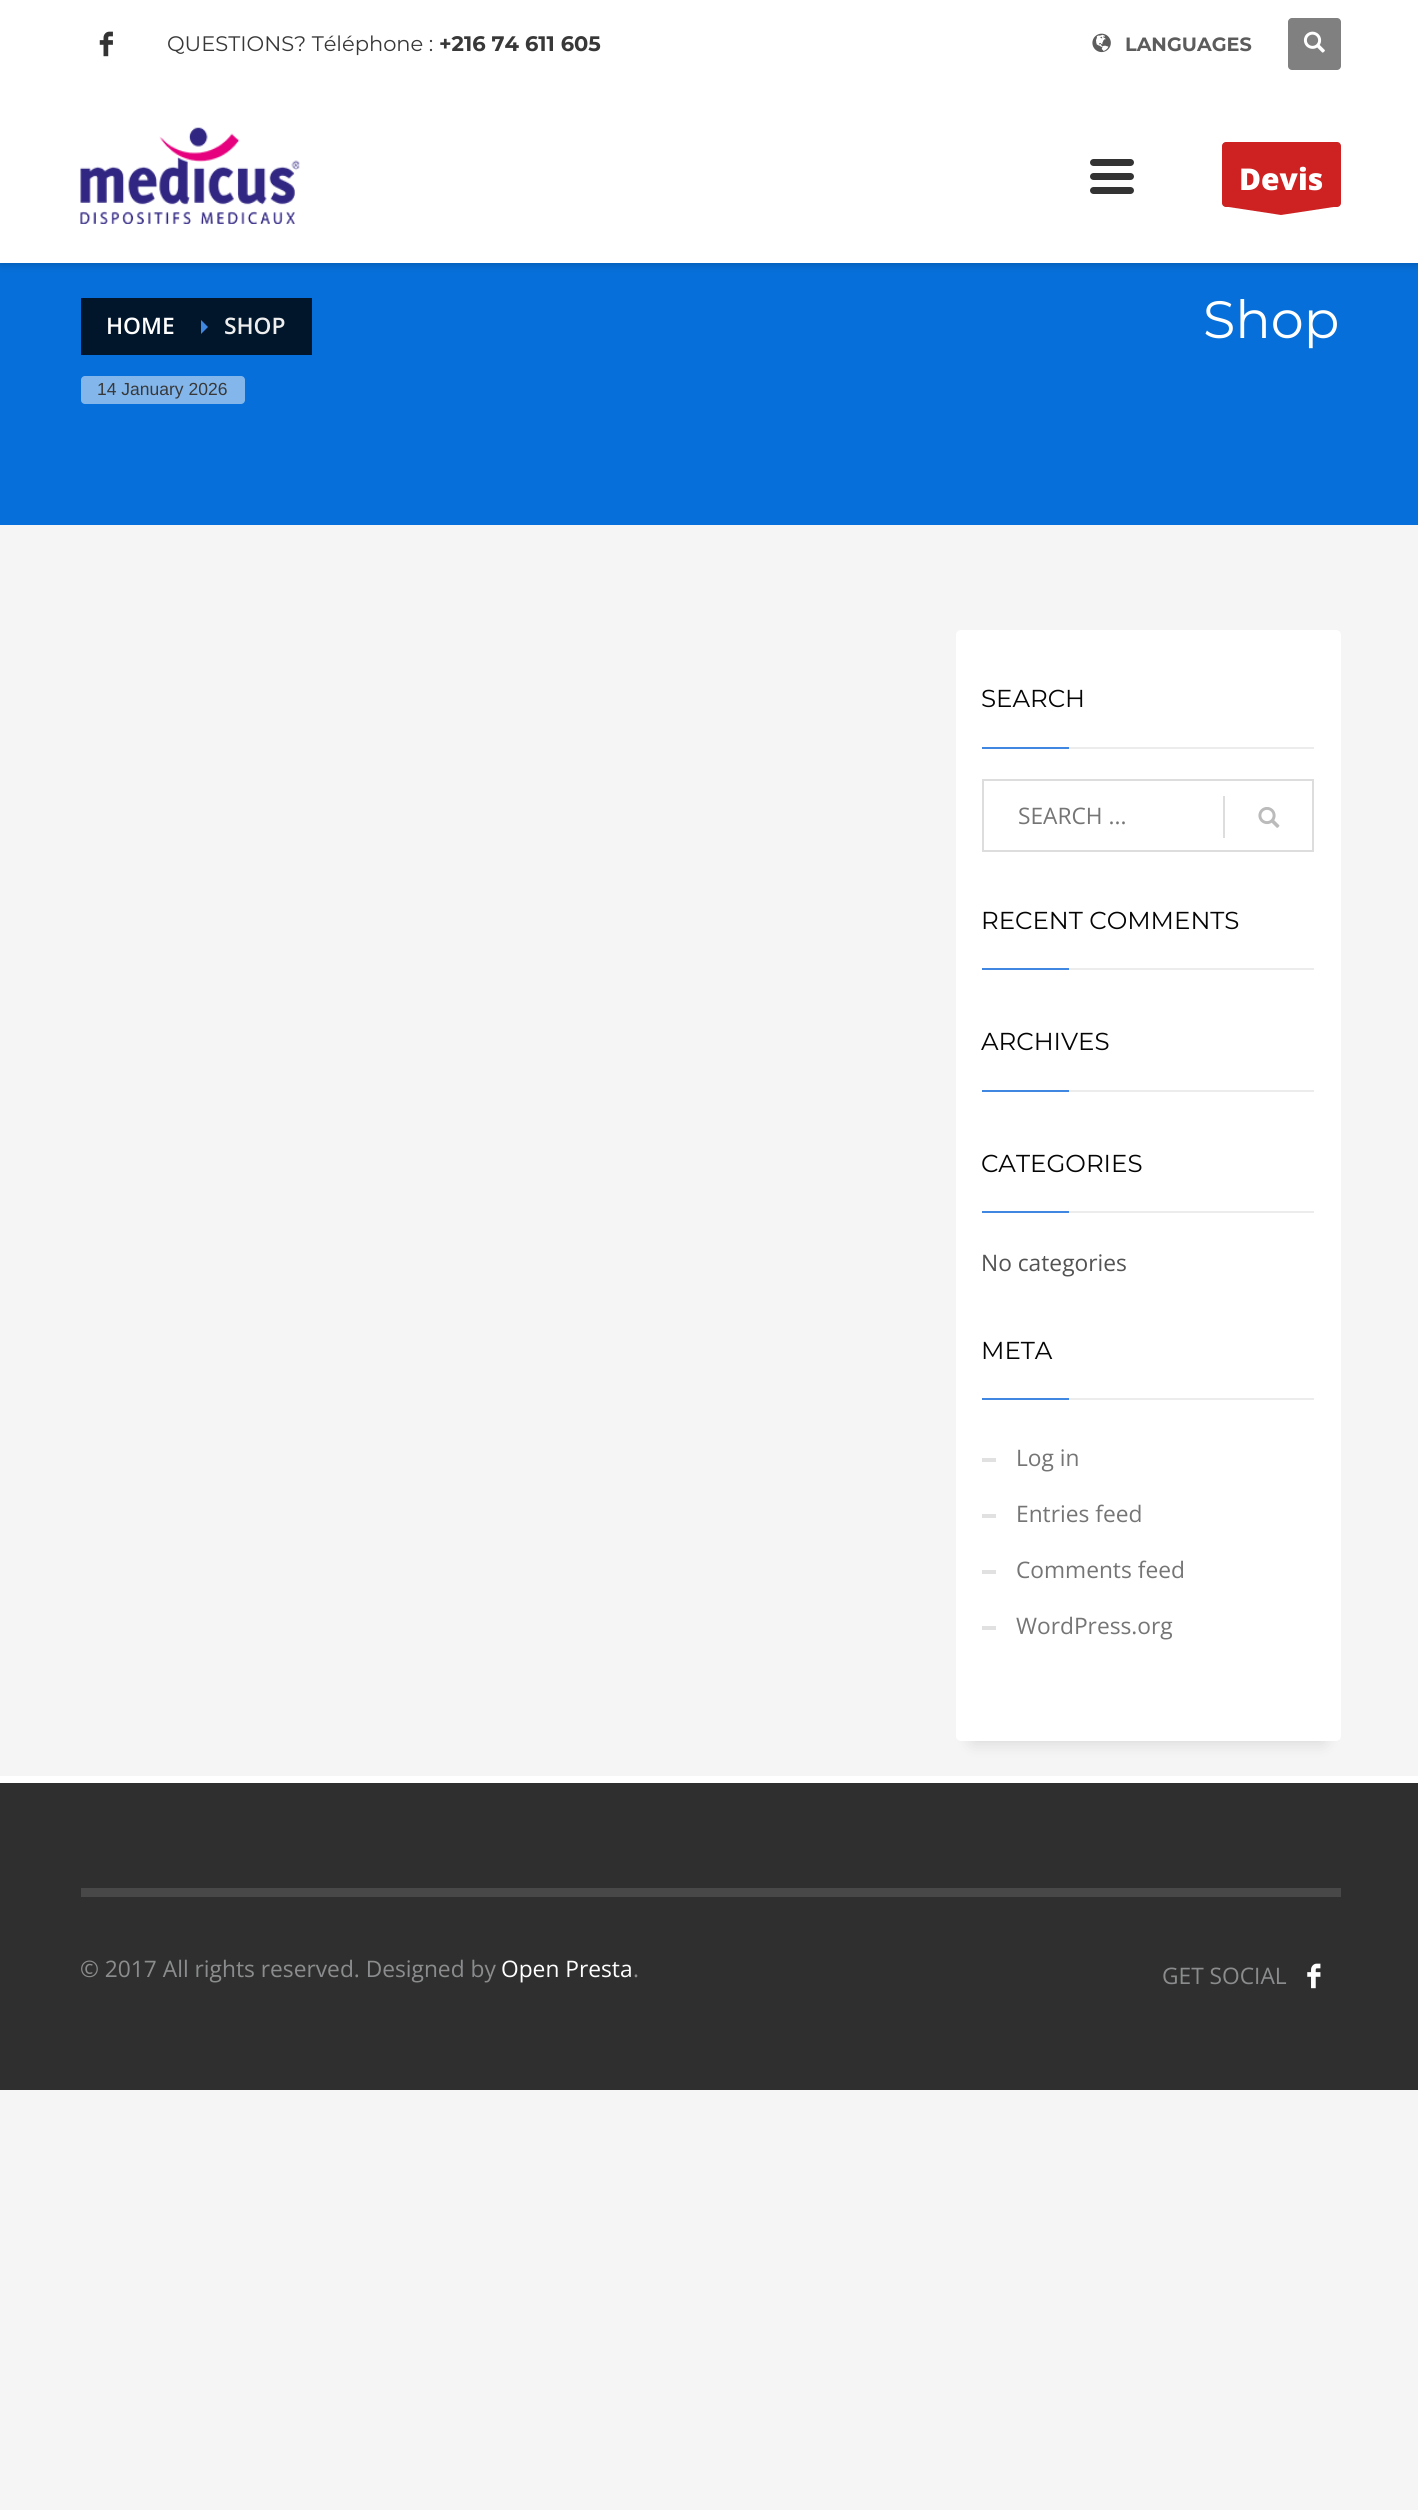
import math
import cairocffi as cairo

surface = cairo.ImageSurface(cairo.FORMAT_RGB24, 1418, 2510)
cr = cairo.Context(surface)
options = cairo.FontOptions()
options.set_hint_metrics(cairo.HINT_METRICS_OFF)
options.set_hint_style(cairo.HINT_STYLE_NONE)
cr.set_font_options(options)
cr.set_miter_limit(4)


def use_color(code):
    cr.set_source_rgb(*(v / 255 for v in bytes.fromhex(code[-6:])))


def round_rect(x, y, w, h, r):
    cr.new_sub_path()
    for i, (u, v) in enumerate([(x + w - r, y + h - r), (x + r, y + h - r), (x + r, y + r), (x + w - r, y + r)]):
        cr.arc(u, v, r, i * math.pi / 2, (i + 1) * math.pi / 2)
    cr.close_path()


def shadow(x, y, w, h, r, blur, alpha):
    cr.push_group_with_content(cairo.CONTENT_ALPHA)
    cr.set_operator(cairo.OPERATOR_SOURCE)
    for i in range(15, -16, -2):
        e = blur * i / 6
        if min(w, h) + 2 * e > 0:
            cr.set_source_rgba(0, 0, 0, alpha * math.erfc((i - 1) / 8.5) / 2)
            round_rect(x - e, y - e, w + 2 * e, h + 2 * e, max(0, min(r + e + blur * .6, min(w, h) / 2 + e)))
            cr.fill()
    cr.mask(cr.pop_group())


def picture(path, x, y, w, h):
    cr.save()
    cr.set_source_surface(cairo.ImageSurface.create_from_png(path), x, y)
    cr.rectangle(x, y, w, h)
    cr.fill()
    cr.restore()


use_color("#f5f5f5")
cr.paint()
use_color("#066fd9")
cr.rectangle(0, 263, 1418, 262)
cr.fill()
use_color("#000000")
shadow(0, 0, 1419, 263, 0, 4.5, 0.25)
use_color("#ffffff")
cr.rectangle(0, 0, 1418, 263)
cr.fill()
picture("img1.png", 99, 31, 14, 26)
cr.select_font_face("Montserrat")
cr.set_font_size(21)
use_color("#383838")
cr.move_to(167, 51)
cr.show_text("QUESTIONS? Téléphone :")
cr.select_font_face("Montserrat", cairo.FONT_SLANT_NORMAL, cairo.FONT_WEIGHT_BOLD)
cr.move_to(439, 51)
cr.show_text("+216 74 611 605")
picture("img2.png", 1092, 33, 19, 20)
cr.set_font_size(19.25)
use_color("#5c5c5c")
cr.move_to(1125, 51)
cr.show_text("LANGUAGES")
use_color("#808080")
round_rect(1288, 18, 53, 52, 4)
cr.fill()
picture("img3.png", 1303, 31, 22, 22)
picture("img4.png", 80, 127, 220, 97)
use_color("#333333")
round_rect(1090, 187, 44, 7, 3.5)
cr.fill()
round_rect(1090, 173, 44, 7, 3.5)
cr.fill()
round_rect(1090, 159, 44, 7, 3.5)
cr.fill()
use_color("#cd2122")
round_rect(1222, 142, 119, 65, 4)
cr.fill()
cr.select_font_face("Open Sans ExtraBold")
cr.set_font_size(30)
use_color("#ffffff")
cr.move_to(1239, 190)
cr.show_text("Devis")
cr.save()
cr.rectangle(1222, 207, 119, 8)
cr.clip()
use_color("#cd2122")
cr.set_fill_rule(cairo.FILL_RULE_EVEN_ODD)
cr.new_path()
cr.move_to(1340, 206)
cr.line_to(1281, 215)
cr.line_to(1222, 206)
cr.close_path()
cr.fill()
cr.restore()
use_color("#01162b")
cr.rectangle(81, 298, 231, 57)
cr.fill()
cr.select_font_face("Open Sans SemiBold")
cr.set_font_size(22.75)
use_color("#ffffff")
cr.move_to(106, 334)
cr.show_text("HOME")
use_color("#4087e1")
cr.new_path()
cr.move_to(201, 334)
cr.line_to(201, 320)
cr.line_to(208, 327)
cr.close_path()
cr.fill()
use_color("#eeeeee")
cr.move_to(224, 334)
cr.show_text("SHOP")
use_color("#83b7ec")
round_rect(81, 376, 164, 28, 4)
cr.fill()
cr.select_font_face("Liberation Sans")
cr.set_font_size(17.5)
use_color("#383838")
cr.move_to(97, 395)
cr.show_text("14 January 2026")
cr.select_font_face("Montserrat")
cr.set_font_size(52.5)
use_color("#ffffff")
cr.move_to(1203, 338)
cr.show_text("Shop")
use_color("#000000")
shadow(973, 665, 350, 1076, 0, 9, 0.15)
use_color("#ffffff")
round_rect(956, 630, 385, 1111, 5)
cr.fill()
cr.set_font_size(24.5)
use_color("#050505")
cr.move_to(981, 707)
cr.show_text("SEARCH")
use_color("#4087e1")
cr.rectangle(982, 747, 87, 2)
cr.fill()
use_color("#ececec")
cr.rectangle(1069, 747, 245, 2)
cr.fill()
cr.rectangle(983, 780, 330, 71)
use_color("#dddddd")
cr.stroke()
cr.save()
cr.rectangle(1019, 800, 259, 31)
cr.clip()
cr.select_font_face("Open Sans")
cr.set_font_size(22.75)
use_color("#757575")
cr.move_to(1018, 824)
cr.show_text("SEARCH ...")
cr.restore()
cr.rectangle(1223, 796, 2, 42)
cr.fill()
picture("img5.png", 1258, 807, 22, 21)
use_color("#050505")
cr.move_to(981, 929)
cr.show_text("RECENT COMMENTS")
use_color("#4087e1")
cr.rectangle(982, 968, 87, 2)
cr.fill()
use_color("#ececec")
cr.rectangle(1069, 968, 245, 2)
cr.fill()
use_color("#050505")
cr.move_to(981, 1050)
cr.show_text("ARCHIVES")
use_color("#4087e1")
cr.rectangle(982, 1090, 87, 2)
cr.fill()
use_color("#ececec")
cr.rectangle(1069, 1090, 245, 2)
cr.fill()
use_color("#050505")
cr.move_to(981, 1172)
cr.show_text("CATEGORIES")
use_color("#4087e1")
cr.rectangle(982, 1211, 87, 2)
cr.fill()
use_color("#ececec")
cr.rectangle(1069, 1211, 245, 2)
cr.fill()
cr.select_font_face("Open Sans")
cr.set_font_size(22.75)
use_color("#535353")
cr.move_to(981, 1271)
cr.show_text("No categories")
cr.select_font_face("Montserrat")
cr.set_font_size(24.5)
use_color("#050505")
cr.move_to(981, 1359)
cr.show_text("META")
use_color("#4087e1")
cr.rectangle(982, 1398, 87, 2)
cr.fill()
use_color("#ececec")
cr.rectangle(1069, 1398, 245, 2)
cr.fill()
use_color("#e1e1e1")
cr.rectangle(982, 1458, 14, 4)
cr.fill()
cr.select_font_face("Open Sans")
cr.set_font_size(22.75)
use_color("#757575")
cr.move_to(1016, 1466)
cr.show_text("Log in")
use_color("#e1e1e1")
cr.rectangle(982, 1514, 14, 4)
cr.fill()
use_color("#757575")
cr.move_to(1016, 1522)
cr.show_text("Entries feed")
use_color("#e1e1e1")
cr.rectangle(982, 1570, 14, 4)
cr.fill()
use_color("#757575")
cr.move_to(1016, 1578)
cr.show_text("Comments feed")
use_color("#e1e1e1")
cr.rectangle(982, 1626, 14, 4)
cr.fill()
use_color("#757575")
cr.move_to(1016, 1634)
cr.show_text("WordPress.org")
use_color("#2f2f2f")
cr.rectangle(0, 1783, 1418, 307)
cr.fill()
use_color("#ffffff")
cr.rectangle(0, 1776, 1418, 7)
cr.fill()
use_color("#484848")
cr.rectangle(81, 1888, 1260, 9)
cr.fill()
use_color("#8b8c8d")
cr.move_to(80, 1977)
cr.show_text("© 2017 All rights reserved. Designed by")
use_color("#ffffff")
cr.move_to(501, 1977)
cr.show_text("Open Presta")
use_color("#8b8c8d")
cr.move_to(633, 1977)
cr.show_text(".")
cr.move_to(1162, 1984)
cr.show_text("GET SOCIAL")
picture("img6.png", 1307, 1963, 14, 26)
surface.write_to_png("result.png")
